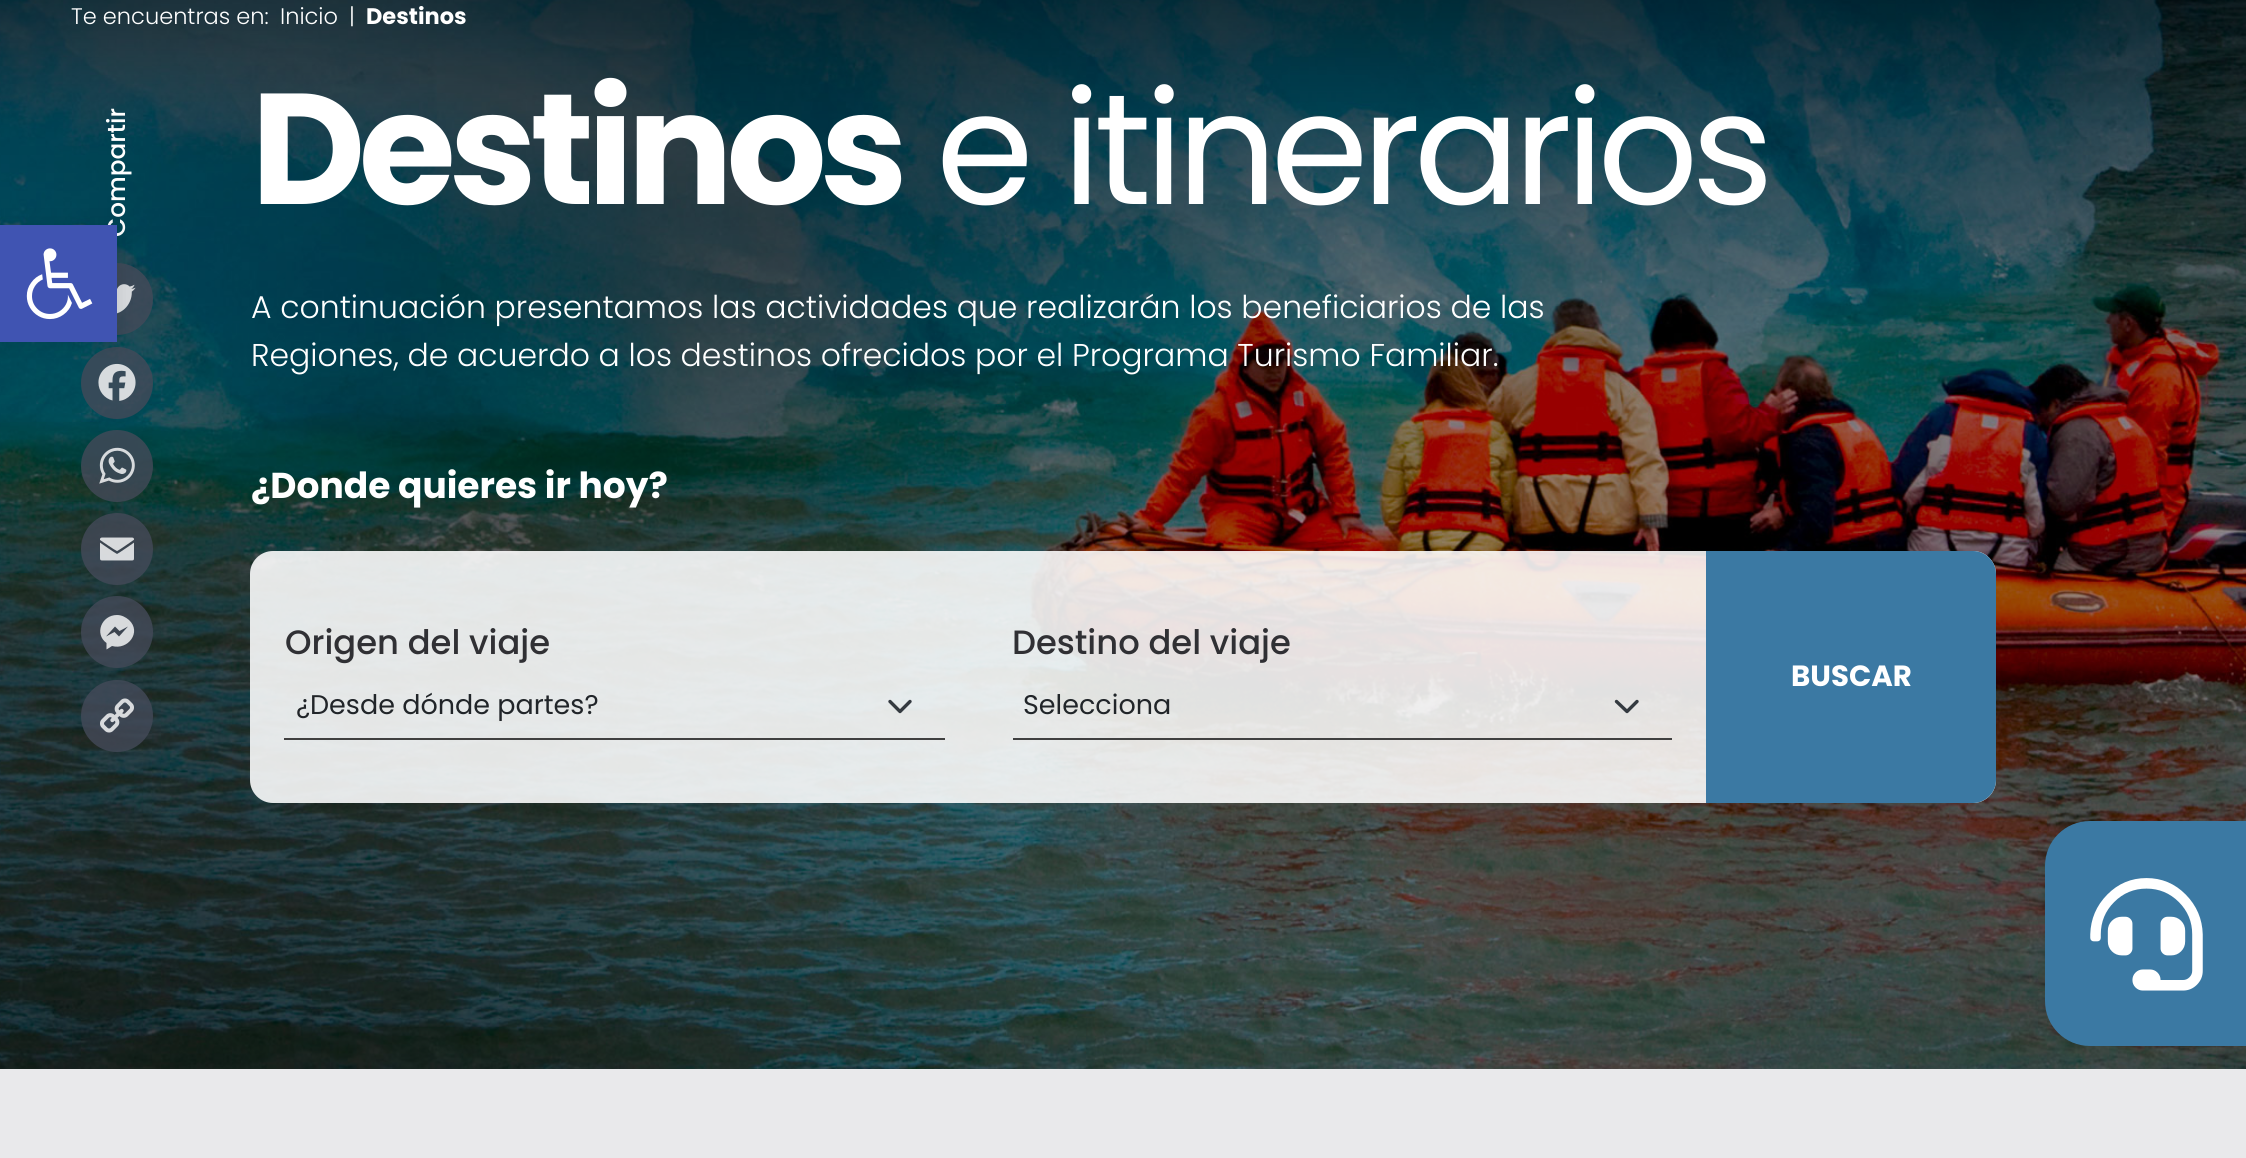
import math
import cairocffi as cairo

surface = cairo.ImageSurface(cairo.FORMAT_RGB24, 2246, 1158)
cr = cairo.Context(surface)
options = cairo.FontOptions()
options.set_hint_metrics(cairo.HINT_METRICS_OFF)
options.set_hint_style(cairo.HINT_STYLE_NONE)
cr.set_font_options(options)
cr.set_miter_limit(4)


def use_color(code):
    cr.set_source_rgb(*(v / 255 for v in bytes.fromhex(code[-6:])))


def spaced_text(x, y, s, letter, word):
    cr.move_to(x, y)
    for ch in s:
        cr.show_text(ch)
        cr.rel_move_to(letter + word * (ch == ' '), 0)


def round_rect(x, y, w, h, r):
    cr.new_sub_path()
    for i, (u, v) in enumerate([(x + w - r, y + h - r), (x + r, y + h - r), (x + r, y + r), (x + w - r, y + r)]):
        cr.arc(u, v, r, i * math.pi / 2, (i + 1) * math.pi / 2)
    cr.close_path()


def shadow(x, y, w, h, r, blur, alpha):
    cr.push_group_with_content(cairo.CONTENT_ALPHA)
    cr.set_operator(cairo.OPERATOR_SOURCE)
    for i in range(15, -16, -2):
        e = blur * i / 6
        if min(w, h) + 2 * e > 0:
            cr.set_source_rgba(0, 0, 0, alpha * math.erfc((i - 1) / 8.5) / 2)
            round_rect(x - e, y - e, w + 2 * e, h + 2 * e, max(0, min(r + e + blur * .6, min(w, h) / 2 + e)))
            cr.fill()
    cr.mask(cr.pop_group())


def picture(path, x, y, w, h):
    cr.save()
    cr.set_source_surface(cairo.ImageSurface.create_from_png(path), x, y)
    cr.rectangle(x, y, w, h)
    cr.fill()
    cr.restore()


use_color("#e9e9eb")
cr.paint()
picture("img1.png", 0, 0, 2246, 1069)
cr.select_font_face("Poppins Light")
cr.set_font_size(22.5)
use_color("#ffffff")
cr.move_to(71, 24)
cr.show_text("Te encuentras en:")
cr.move_to(280, 24)
cr.show_text("Inicio")
cr.move_to(349, 24)
cr.show_text("|")
cr.select_font_face("Poppins", cairo.FONT_SLANT_NORMAL, cairo.FONT_WEIGHT_BOLD)
cr.move_to(366, 24)
cr.show_text("Destinos")
cr.select_font_face("Poppins Medium")
cr.set_font_size(24.75)
cr.save()
cr.translate(125, 237)
cr.rotate(-90 * math.pi / 180)
cr.move_to(0, 0)
cr.show_text("Compartir")
cr.restore()
cr.set_source_rgba(0.267, 0.29, 0.349, 0.8)
cr.new_path()
cr.arc(117, 299, 36, 0, 2 * math.pi)
cr.fill()
picture("img2.png", 117, 284, 19, 30)
cr.arc(117, 383, 36, 0, 2 * math.pi)
cr.fill()
picture("img3.png", 98, 363, 38, 38)
cr.arc(117, 466, 36, 0, 2 * math.pi)
cr.fill()
picture("img4.png", 99, 447, 36, 37)
cr.arc(117, 549, 36, 0, 2 * math.pi)
cr.fill()
picture("img5.png", 100, 537, 34, 24)
cr.arc(117, 632, 36, 0, 2 * math.pi)
cr.fill()
cr.set_source_rgba(1, 1, 1, 0.8)
cr.new_path()
cr.move_to(117, 615)
cr.curve_to(101.5, 615, 94, 634, 106.5, 643)
cr.line_to(106.5, 649.5)
cr.line_to(112, 646)
cr.curve_to(128, 650.5, 142, 632, 129, 620)
cr.curve_to(125.5, 617, 121.5, 615, 117, 615)
cr.move_to(119, 636.5)
cr.line_to(114.5, 632)
cr.line_to(106, 636.5)
cr.line_to(115, 626.5)
cr.line_to(119.5, 631)
cr.line_to(128, 626.5)
cr.close_path()
cr.fill()
cr.set_source_rgba(0.267, 0.29, 0.349, 0.8)
cr.arc(117, 716, 36, 0, 2 * math.pi)
cr.fill()
picture("img6.png", 100, 698, 34, 35)
cr.select_font_face("Poppins", cairo.FONT_SLANT_NORMAL, cairo.FONT_WEIGHT_BOLD)
cr.set_font_size(157.5)
use_color("#ffffff")
spaced_text(251, 204, "Destinos", -6.75, 0)
cr.select_font_face("Poppins")
spaced_text(936, 204, "e itinerarios", -6.75, 0)
cr.select_font_face("Poppins Light")
cr.set_font_size(31.5)
cr.move_to(251, 318)
cr.show_text("A continuación presentamos las actividades que realizarán los beneficiarios de las")
cr.move_to(251, 366)
cr.show_text("Regiones, de acuerdo a los destinos ofrecidos por el Programa Turismo Familiar.")
cr.select_font_face("Poppins", cairo.FONT_SLANT_NORMAL, cairo.FONT_WEIGHT_BOLD)
cr.set_font_size(36)
cr.move_to(251, 498)
cr.show_text("¿Donde quieres ir hoy?")
cr.set_source_rgba(1, 1, 1, 0.88)
round_rect(250, 551, 1746, 252, 23)
cr.fill()
cr.select_font_face("Poppins Medium")
cr.set_font_size(33.75)
use_color("#303034")
cr.move_to(285, 654)
cr.show_text("Origen del viaje")
cr.new_path()
cr.move_to(890, 701.5)
cr.line_to(900, 711.5)
cr.line_to(910, 701.5)
use_color("#343a40")
cr.set_line_width(3.4)
cr.set_line_cap(cairo.LINE_CAP_ROUND)
cr.set_line_join(cairo.LINE_JOIN_ROUND)
cr.stroke()
use_color("#404040")
cr.rectangle(284, 738, 661, 2)
cr.fill()
cr.select_font_face("Poppins")
cr.set_font_size(27)
use_color("#212529")
cr.move_to(296, 714)
cr.show_text("¿Desde dónde partes?")
cr.select_font_face("Poppins Medium")
cr.set_font_size(33.75)
use_color("#303034")
cr.move_to(1012, 654)
cr.show_text("Destino del viaje")
cr.new_path()
cr.move_to(1616.5, 701.5)
cr.line_to(1627, 711.5)
cr.line_to(1637, 701.5)
use_color("#343a40")
cr.stroke()
use_color("#404040")
cr.rectangle(1013, 738, 659, 2)
cr.fill()
cr.select_font_face("Poppins")
cr.set_font_size(27)
use_color("#212529")
cr.move_to(1023, 714)
cr.show_text("Selecciona")
use_color("#3b79a3")
cr.new_path()
cr.move_to(1706, 551)
cr.line_to(1973, 551)
cr.curve_to(1985.5, 551, 1996, 561.5, 1996, 574)
cr.line_to(1996, 780)
cr.curve_to(1996, 792.5, 1985.5, 803, 1973, 803)
cr.line_to(1706, 803)
cr.close_path()
cr.fill()
cr.select_font_face("Poppins", cairo.FONT_SLANT_NORMAL, cairo.FONT_WEIGHT_BOLD)
cr.set_font_size(29.25)
use_color("#ffffff")
cr.move_to(1791, 686)
cr.show_text("BUSCAR")
use_color("#000000")
shadow(0, 225, 117, 117, 0, 11, 0.1)
use_color("#4054b2")
cr.rectangle(0, 225, 117, 117)
cr.fill()
picture("img7.png", 26, 248, 67, 72)
use_color("#3b79a3")
cr.new_path()
cr.move_to(2090, 821)
cr.line_to(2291, 821)
cr.line_to(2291, 1046)
cr.line_to(2090, 1046)
cr.curve_to(2065, 1046, 2045, 1026, 2045, 1001)
cr.line_to(2045, 866)
cr.curve_to(2045, 841, 2065, 821, 2090, 821)
cr.close_path()
cr.fill()
picture("img8.png", 2090, 878, 113, 113)
surface.write_to_png("result.png")
